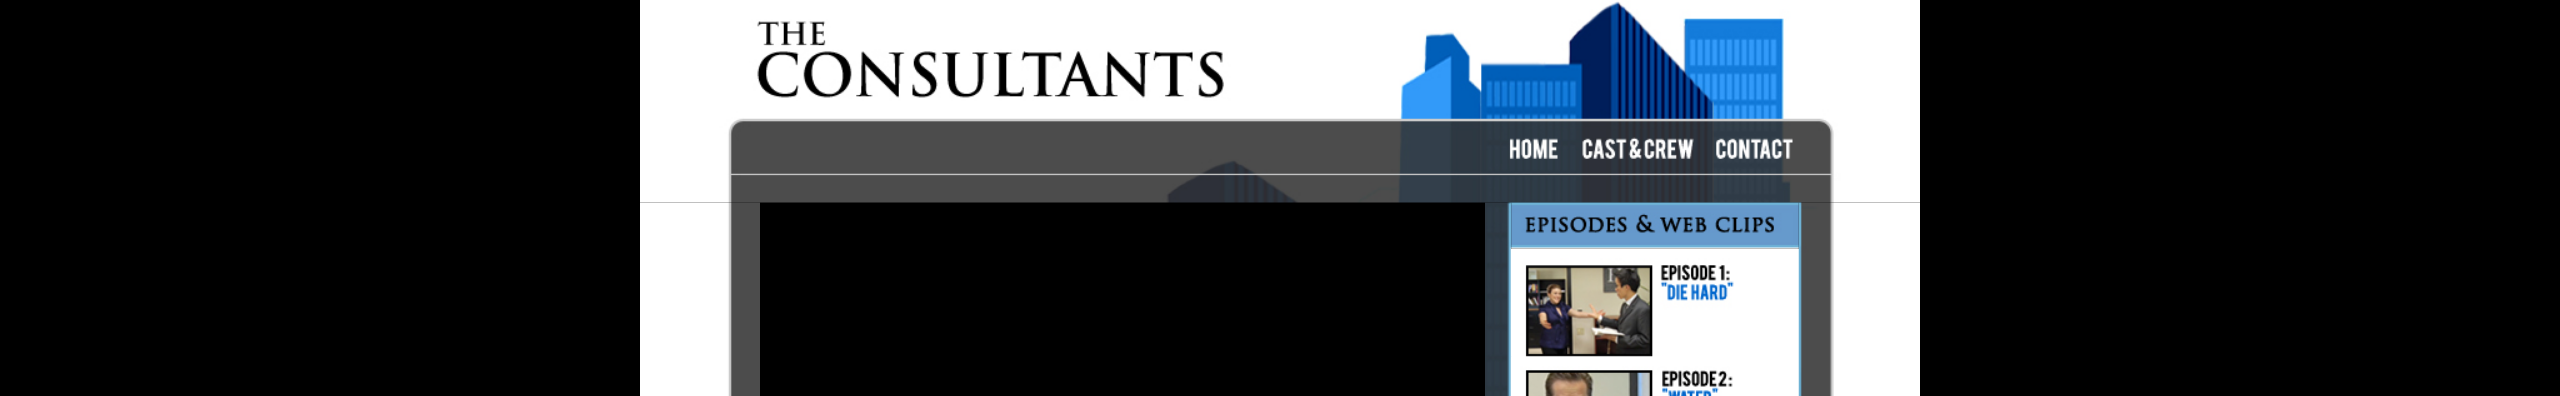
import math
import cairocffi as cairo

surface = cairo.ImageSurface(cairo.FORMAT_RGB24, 2560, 396)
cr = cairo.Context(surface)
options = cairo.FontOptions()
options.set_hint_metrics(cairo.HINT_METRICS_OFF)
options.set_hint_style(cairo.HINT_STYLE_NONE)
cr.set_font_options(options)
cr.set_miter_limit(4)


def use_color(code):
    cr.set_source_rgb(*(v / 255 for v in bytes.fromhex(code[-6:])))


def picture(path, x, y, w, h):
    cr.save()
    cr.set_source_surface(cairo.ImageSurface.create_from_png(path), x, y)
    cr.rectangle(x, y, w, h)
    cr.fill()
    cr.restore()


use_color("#000000")
cr.paint()
picture("img1.png", 640, 0, 1280, 203)
picture("img2.png", 1509, 138, 49, 21)
picture("img3.png", 1582, 137, 112, 22)
picture("img4.png", 1716, 138, 77, 21)
picture("img5.png", 640, 202, 120, 194)
use_color("#ffffff")
cr.rectangle(1511, 249, 288, 147)
cr.fill()
picture("img6.png", 1485, 202, 27, 194)
picture("img9.png", 1798, 202, 122, 194)
picture("img7.png", 1511, 202, 288, 47)
picture("img8.png", 1511, 249, 223, 147)
surface.write_to_png("result.png")
